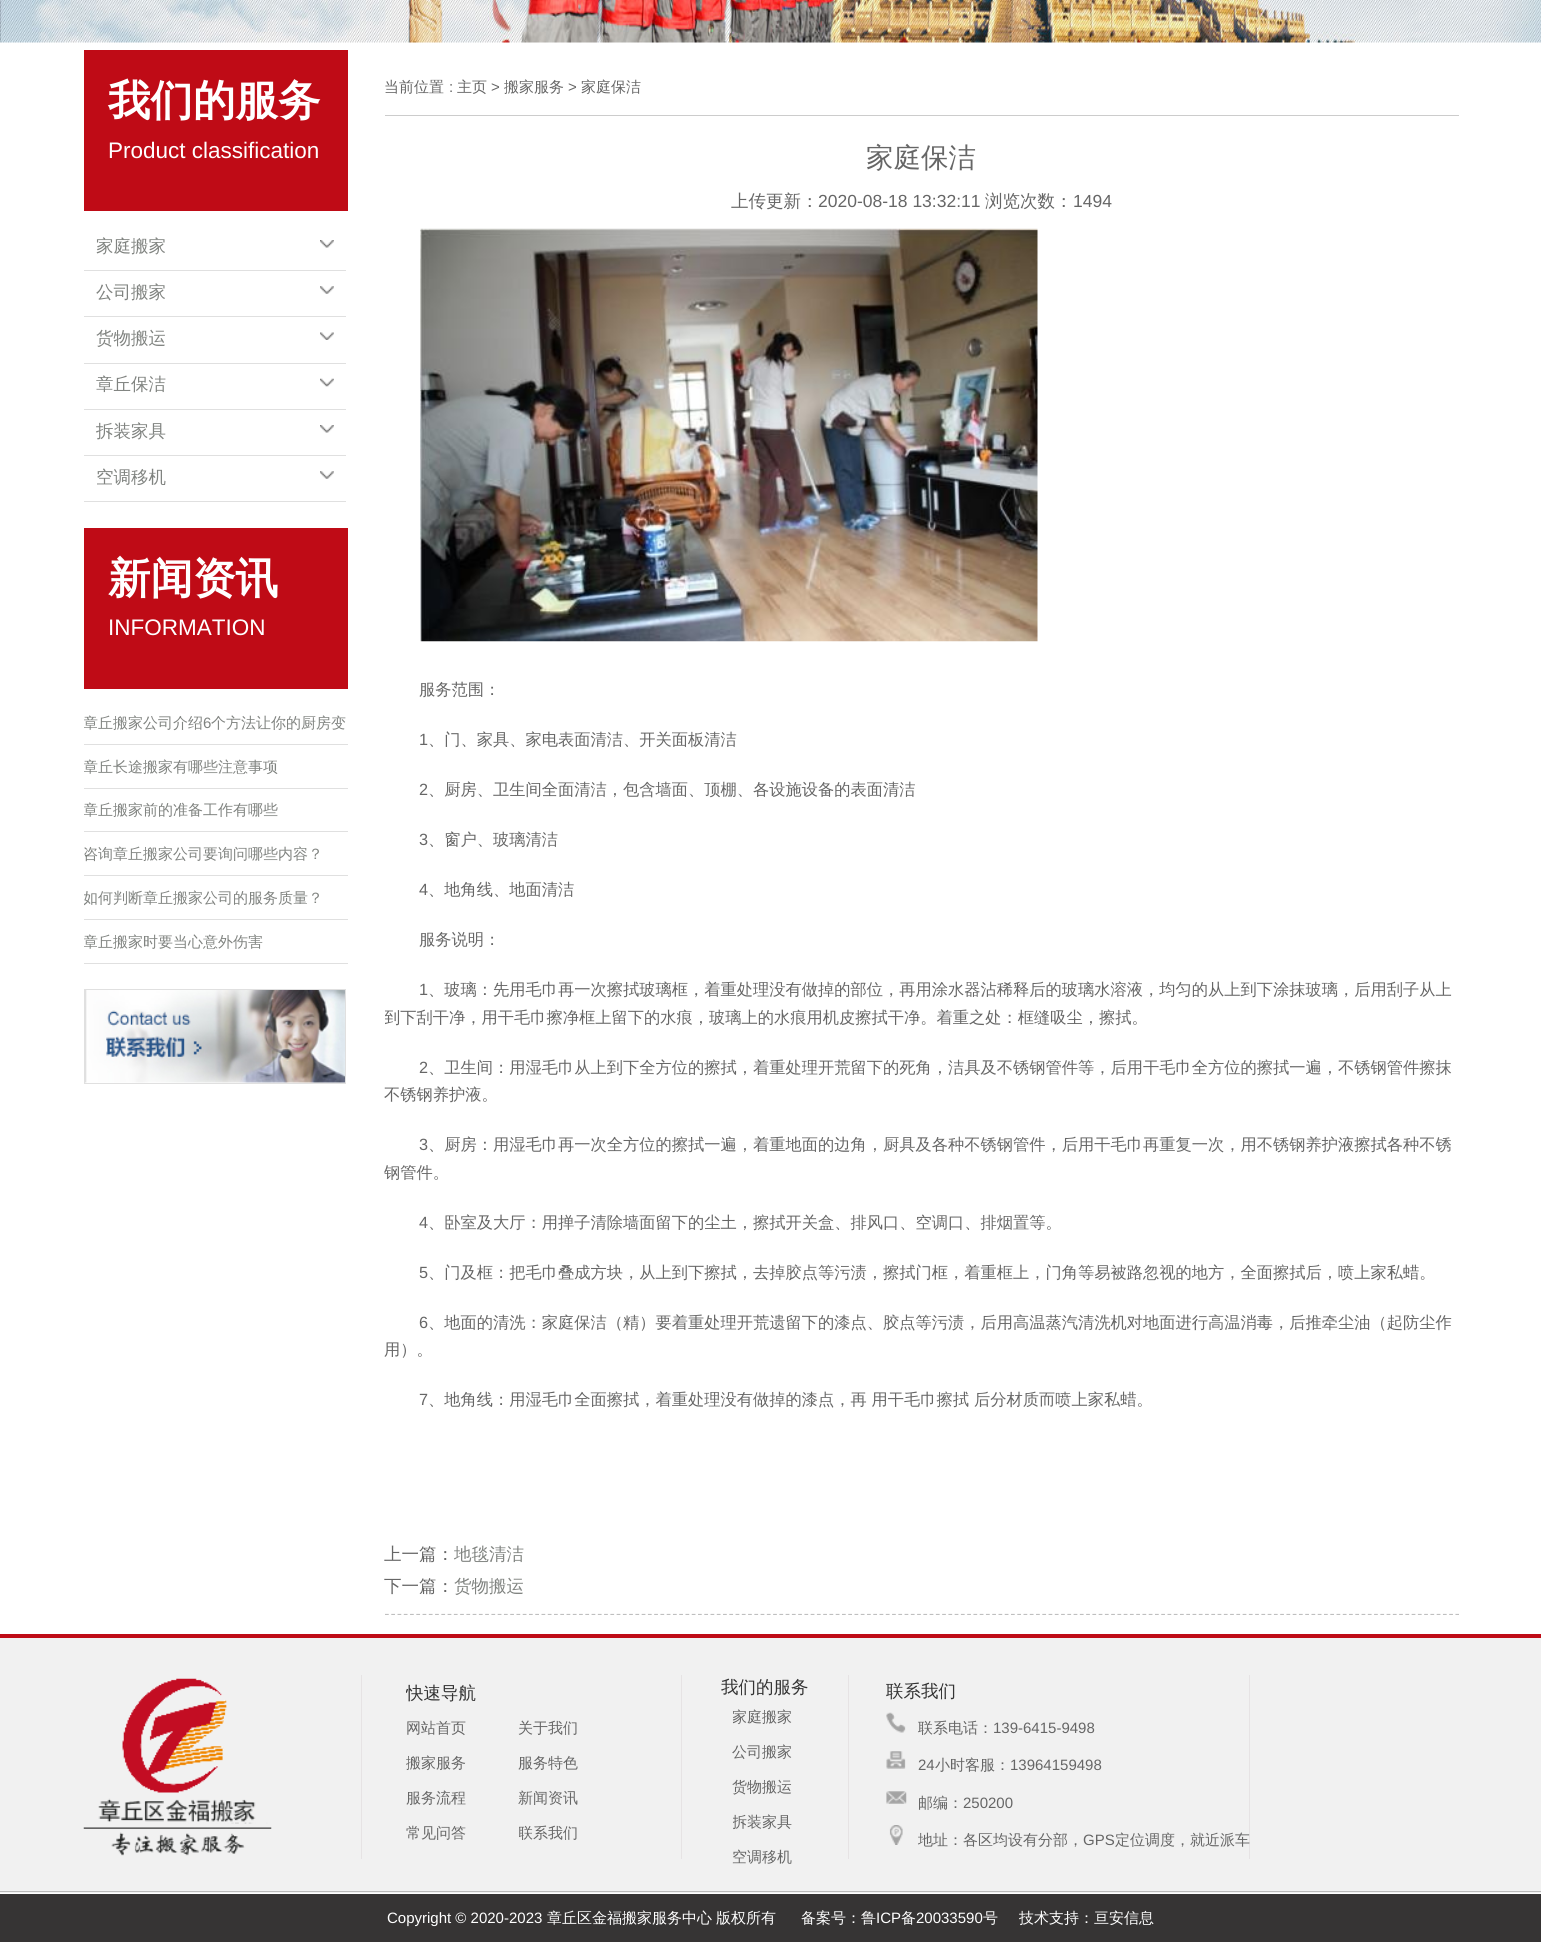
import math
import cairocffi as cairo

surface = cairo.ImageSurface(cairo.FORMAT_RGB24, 1541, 1942)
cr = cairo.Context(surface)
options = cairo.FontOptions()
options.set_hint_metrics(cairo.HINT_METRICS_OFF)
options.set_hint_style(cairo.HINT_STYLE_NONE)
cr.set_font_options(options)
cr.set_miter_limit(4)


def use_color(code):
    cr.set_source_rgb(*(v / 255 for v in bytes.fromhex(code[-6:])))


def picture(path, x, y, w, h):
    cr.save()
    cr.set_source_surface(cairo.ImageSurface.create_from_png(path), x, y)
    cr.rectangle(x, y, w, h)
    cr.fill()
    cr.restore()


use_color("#ffffff")
cr.paint()
picture("img1.png", 0, 0, 1541, 43)
use_color("#bf0b16")
cr.rectangle(84, 50, 264, 161)
cr.fill()
cr.select_font_face("WenQuanYi Zen Hei", cairo.FONT_SLANT_NORMAL, cairo.FONT_WEIGHT_BOLD)
cr.set_font_size(42.5)
use_color("#ffffff")
cr.move_to(108, 115)
cr.show_text("我们的服务")
cr.select_font_face("Liberation Sans")
cr.set_font_size(22.5)
cr.move_to(108, 158)
cr.show_text("Product classification")
use_color("#e0e0e0")
cr.rectangle(84, 270, 262, 1)
cr.fill()
cr.select_font_face("WenQuanYi Zen Hei Medium")
cr.set_font_size(17.5)
use_color("#808380")
cr.move_to(96, 252)
cr.show_text("家庭搬家")
picture("img2.png", 320, 240, 14, 8)
use_color("#e0e0e0")
cr.rectangle(84, 316, 262, 1)
cr.fill()
use_color("#808380")
cr.move_to(96, 298)
cr.show_text("公司搬家")
picture("img3.png", 320, 286, 14, 8)
use_color("#e0e0e0")
cr.rectangle(84, 363, 262, 1)
cr.fill()
use_color("#808380")
cr.move_to(96, 344)
cr.show_text("货物搬运")
picture("img4.png", 320, 332, 14, 8)
use_color("#e0e0e0")
cr.rectangle(84, 409, 262, 1)
cr.fill()
use_color("#808380")
cr.move_to(96, 390)
cr.show_text("章丘保洁")
picture("img5.png", 320, 378, 14, 9)
use_color("#e0e0e0")
cr.rectangle(84, 455, 262, 1)
cr.fill()
use_color("#808380")
cr.move_to(96, 437)
cr.show_text("拆装家具")
picture("img2.png", 320, 425, 14, 8)
use_color("#e0e0e0")
cr.rectangle(84, 501, 262, 1)
cr.fill()
use_color("#808380")
cr.move_to(96, 483)
cr.show_text("空调移机")
picture("img3.png", 320, 471, 14, 8)
use_color("#bf0b16")
cr.rectangle(84, 528, 264, 161)
cr.fill()
cr.select_font_face("WenQuanYi Zen Hei", cairo.FONT_SLANT_NORMAL, cairo.FONT_WEIGHT_BOLD)
cr.set_font_size(42.5)
use_color("#ffffff")
cr.move_to(108, 593)
cr.show_text("新闻资讯")
cr.select_font_face("Liberation Sans")
cr.set_font_size(22.5)
cr.move_to(108, 635)
cr.show_text("INFORMATION")
use_color("#e0e0e0")
cr.rectangle(84, 744, 264, 1)
cr.fill()
cr.save()
cr.rectangle(84, 701, 264, 43)
cr.clip()
cr.select_font_face("WenQuanYi Zen Hei Medium")
cr.set_font_size(15)
use_color("#808380")
cr.move_to(83, 728)
cr.show_text("章丘搬家公司介绍")
cr.restore()
cr.set_font_size(15)
use_color("#808380")
cr.move_to(203, 728)
cr.show_text("6")
cr.select_font_face("WenQuanYi Zen Hei Medium")
cr.move_to(211, 728)
cr.show_text("个方法让你的厨房变")
use_color("#e0e0e0")
cr.rectangle(84, 788, 264, 1)
cr.fill()
cr.save()
cr.rectangle(84, 745, 264, 43)
cr.clip()
use_color("#808380")
cr.move_to(83, 772)
cr.show_text("章丘长途搬家有哪些注意事项")
cr.restore()
cr.rectangle(84, 831, 264, 1)
cr.fill()
cr.save()
cr.rectangle(84, 789, 264, 42)
cr.clip()
use_color("#808380")
cr.move_to(83, 815)
cr.show_text("章丘搬家前的准备工作有哪些")
cr.restore()
cr.rectangle(84, 875, 264, 1)
cr.fill()
use_color("#808380")
cr.move_to(83, 859)
cr.show_text("咨询章丘搬家公司要询问哪些内容？")
use_color("#e0e0e0")
cr.rectangle(84, 919, 264, 1)
cr.fill()
cr.save()
cr.rectangle(84, 876, 264, 43)
cr.clip()
use_color("#808380")
cr.move_to(83, 903)
cr.show_text("如何判断章丘搬家公司的服务质量？")
cr.restore()
cr.rectangle(84, 963, 264, 1)
cr.fill()
cr.save()
cr.rectangle(84, 920, 264, 43)
cr.clip()
use_color("#808380")
cr.move_to(83, 947)
cr.show_text("章丘搬家时要当心意外伤害")
cr.restore()
cr.rectangle(84.5, 989.5, 261, 94)
cr.set_line_width(1)
cr.stroke()
picture("img6.png", 85, 990, 260, 93)
use_color("#cccccc")
cr.rectangle(385, 115, 1074, 1)
cr.fill()
use_color("#666666")
cr.move_to(384, 92)
cr.show_text("当前位置")
cr.select_font_face("Liberation Sans")
cr.move_to(449, 92)
cr.show_text(":")
cr.select_font_face("WenQuanYi Zen Hei Medium")
cr.move_to(457, 92)
cr.show_text("主页")
cr.select_font_face("Liberation Sans")
cr.move_to(491, 92)
cr.show_text(">")
cr.select_font_face("WenQuanYi Zen Hei Medium")
cr.move_to(504, 92)
cr.show_text("搬家服务")
cr.select_font_face("Liberation Sans")
cr.move_to(568, 92)
cr.show_text(">")
cr.select_font_face("WenQuanYi Zen Hei Medium")
cr.move_to(581, 92)
cr.show_text("家庭保洁")
cr.save()
cr.rectangle(385, 116, 1074, 1499)
cr.clip()
cr.new_path()
cr.move_to(385, 1614.5)
cr.line_to(1459, 1614.5)
use_color("#bfbfbf")
cr.set_line_width(1.2)
cr.set_dash([3.75, 2.51])
cr.stroke()
cr.restore()
cr.set_font_size(27.5)
cr.move_to(866, 167)
cr.show_text("家庭保洁")
cr.set_font_size(17.5)
cr.move_to(731, 207)
cr.show_text("上传更新：")
cr.select_font_face("Liberation Sans")
cr.move_to(818, 207)
cr.show_text("2020-08-18 13:32:11")
cr.select_font_face("WenQuanYi Zen Hei Medium")
cr.move_to(985, 207)
cr.show_text("浏览次数：")
cr.select_font_face("Liberation Sans")
cr.move_to(1073, 207)
cr.show_text("1494")
picture("img7.png", 420, 228, 618, 414)
cr.select_font_face("WenQuanYi Zen Hei Medium")
cr.set_font_size(16.25)
cr.move_to(419, 695)
cr.show_text("服务范围：")
cr.select_font_face("Liberation Sans")
cr.move_to(419, 745)
cr.show_text("1")
cr.select_font_face("WenQuanYi Zen Hei Medium")
cr.move_to(428, 745)
cr.show_text("、门、家具、家电表面清洁、开关面板清洁")
cr.select_font_face("Liberation Sans")
cr.move_to(419, 795)
cr.show_text("2")
cr.select_font_face("WenQuanYi Zen Hei Medium")
cr.move_to(428, 795)
cr.show_text("、厨房、卫生间全面清洁，包含墙面、顶棚、各设施设备的表面清洁")
cr.select_font_face("Liberation Sans")
cr.move_to(419, 845)
cr.show_text("3")
cr.select_font_face("WenQuanYi Zen Hei Medium")
cr.move_to(428, 845)
cr.show_text("、窗户、玻璃清洁")
cr.select_font_face("Liberation Sans")
cr.move_to(419, 895)
cr.show_text("4")
cr.select_font_face("WenQuanYi Zen Hei Medium")
cr.move_to(428, 895)
cr.show_text("、地角线、地面清洁")
cr.move_to(419, 945)
cr.show_text("服务说明：")
cr.select_font_face("Liberation Sans")
cr.move_to(419, 995)
cr.show_text("1")
cr.select_font_face("WenQuanYi Zen Hei Medium")
cr.move_to(428, 995)
cr.show_text("、玻璃：先用毛巾再一次擦拭玻璃框，着重处理没有做掉的部位，再用涂水器沾稀释后的玻璃水溶液，均匀的从上到下涂抹玻璃，后用刮子从上")
cr.save()
cr.rectangle(385, 116, 1074, 1499)
cr.clip()
cr.move_to(384, 1023)
cr.show_text("到下刮干净，用干毛巾擦净框上留下的水痕，玻璃上的水痕用机皮擦拭干净。着重之处：框缝吸尘，擦拭。")
cr.restore()
cr.select_font_face("Liberation Sans")
cr.move_to(419, 1073)
cr.show_text("2")
cr.select_font_face("WenQuanYi Zen Hei Medium")
cr.move_to(428, 1073)
cr.show_text("、卫生间：用湿毛巾从上到下全方位的擦拭，着重处理开荒留下的死角，洁具及不锈钢管件等，后用干毛巾全方位的擦拭一遍，不锈钢管件擦抹")
cr.move_to(384, 1100)
cr.show_text("不锈钢养护液。")
cr.select_font_face("Liberation Sans")
cr.move_to(419, 1150)
cr.show_text("3")
cr.select_font_face("WenQuanYi Zen Hei Medium")
cr.move_to(428, 1150)
cr.show_text("、厨房：用湿毛巾再一次全方位的擦拭一遍，着重地面的边角，厨具及各种不锈钢管件，后用干毛巾再重复一次，用不锈钢养护液擦拭各种不锈")
cr.move_to(384, 1178)
cr.show_text("钢管件。")
cr.select_font_face("Liberation Sans")
cr.move_to(419, 1228)
cr.show_text("4")
cr.select_font_face("WenQuanYi Zen Hei Medium")
cr.move_to(428, 1228)
cr.show_text("、卧室及大厅：用掸子清除墙面留下的尘土，擦拭开关盒、排风口、空调口、排烟置等。")
cr.select_font_face("Liberation Sans")
cr.move_to(419, 1278)
cr.show_text("5")
cr.select_font_face("WenQuanYi Zen Hei Medium")
cr.move_to(428, 1278)
cr.show_text("、门及框：把毛巾叠成方块，从上到下擦拭，去掉胶点等污渍，擦拭门框，着重框上，门角等易被路忽视的地方，全面擦拭后，喷上家私蜡。")
cr.select_font_face("Liberation Sans")
cr.move_to(419, 1328)
cr.show_text("6")
cr.select_font_face("WenQuanYi Zen Hei Medium")
cr.move_to(428, 1328)
cr.show_text("、地面的清洗：家庭保洁（精）要着重处理开荒遗留下的漆点、胶点等污渍，后用高温蒸汽清洗机对地面进行高温消毒，后推牵尘油（起防尘作")
cr.move_to(384, 1355)
cr.show_text("用）。")
cr.select_font_face("Liberation Sans")
cr.move_to(419, 1405)
cr.show_text("7")
cr.select_font_face("WenQuanYi Zen Hei Medium")
cr.move_to(428, 1405)
cr.show_text("、地角线：用湿毛巾全面擦拭，着重处理没有做掉的漆点，再 用干毛巾擦拭 后分材质而喷上家私蜡。")
cr.set_font_size(17.5)
cr.move_to(384, 1560)
cr.show_text("上一篇：")
use_color("#808380")
cr.move_to(454, 1560)
cr.show_text("地毯清洁")
use_color("#666666")
cr.move_to(384, 1592)
cr.show_text("下一篇：")
use_color("#808380")
cr.move_to(454, 1592)
cr.show_text("货物搬运")
use_color("#f1f1f1")
cr.rectangle(0, 1638, 1541, 255)
cr.fill()
use_color("#bf0b16")
cr.rectangle(0, 1634, 1541, 4)
cr.fill()
use_color("#b9b9b9")
cr.rectangle(0, 1891, 1541, 1)
cr.fill()
use_color("#e6e3e4")
cr.rectangle(361, 1675, 1, 184)
cr.fill()
picture("img8.png", 83, 1678, 189, 178)
cr.rectangle(681, 1675, 1, 184)
cr.fill()
cr.save()
cr.rectangle(406, 1675, 275, 35)
cr.clip()
use_color("#333333")
cr.move_to(406, 1699)
cr.show_text("快速导航")
cr.restore()
cr.set_font_size(15)
use_color("#666666")
cr.move_to(406, 1733)
cr.show_text("网站首页")
cr.move_to(518, 1733)
cr.show_text("关于我们")
cr.move_to(406, 1768)
cr.show_text("搬家服务")
cr.move_to(518, 1768)
cr.show_text("服务特色")
cr.move_to(406, 1803)
cr.show_text("服务流程")
cr.move_to(518, 1803)
cr.show_text("新闻资讯")
cr.move_to(406, 1838)
cr.show_text("常见问答")
cr.save()
cr.rectangle(519, 1815, 112, 35)
cr.clip()
cr.move_to(518, 1838)
cr.show_text("联系我们")
cr.restore()
use_color("#e6e3e4")
cr.rectangle(848, 1675, 1, 184)
cr.fill()
cr.set_font_size(17.5)
use_color("#333333")
cr.move_to(721, 1693)
cr.show_text("我们的服务")
cr.save()
cr.rectangle(733, 1699, 100, 35)
cr.clip()
cr.set_font_size(15)
use_color("#666666")
cr.move_to(732, 1722)
cr.show_text("家庭搬家")
cr.restore()
cr.set_font_size(15)
use_color("#666666")
cr.move_to(732, 1757)
cr.show_text("公司搬家")
cr.move_to(732, 1792)
cr.show_text("货物搬运")
cr.save()
cr.rectangle(733, 1804, 100, 35)
cr.clip()
cr.move_to(732, 1827)
cr.show_text("拆装家具")
cr.restore()
cr.move_to(732, 1862)
cr.show_text("空调移机")
use_color("#e6e3e4")
cr.rectangle(1249, 1675, 1, 184)
cr.fill()
cr.set_font_size(17.5)
use_color("#333333")
cr.move_to(886, 1697)
cr.show_text("联系我们")
picture("img9.png", 886, 1712, 20, 21)
cr.set_font_size(15)
use_color("#666666")
cr.move_to(918, 1733)
cr.show_text("联系电话：")
cr.select_font_face("Liberation Sans")
cr.move_to(993, 1733)
cr.show_text("139-6415-9498")
picture("img10.png", 886, 1751, 20, 18)
cr.move_to(918, 1770)
cr.show_text("24")
cr.select_font_face("WenQuanYi Zen Hei Medium")
cr.move_to(935, 1770)
cr.show_text("小时客服：")
cr.select_font_face("Liberation Sans")
cr.move_to(1010, 1770)
cr.show_text("13964159498")
picture("img11.png", 886, 1791, 21, 13)
cr.select_font_face("WenQuanYi Zen Hei Medium")
cr.move_to(918, 1808)
cr.show_text("邮编：")
cr.select_font_face("Liberation Sans")
cr.move_to(963, 1808)
cr.show_text("250200")
picture("img12.png", 889, 1825, 14, 20)
cr.select_font_face("WenQuanYi Zen Hei Medium")
cr.move_to(918, 1845)
cr.show_text("地址：各区均设有分部，")
cr.select_font_face("Liberation Sans")
cr.move_to(1083, 1845)
cr.show_text("GPS")
cr.select_font_face("WenQuanYi Zen Hei Medium")
cr.move_to(1115, 1845)
cr.show_text("定位调度，就近派车")
use_color("#363434")
cr.rectangle(0, 1894, 1541, 48)
cr.fill()
cr.select_font_face("Liberation Sans")
use_color("#ffffff")
cr.move_to(387, 1923)
cr.show_text("Copyright © 2020-2023")
cr.select_font_face("WenQuanYi Zen Hei Medium")
cr.move_to(547, 1923)
cr.show_text("章丘区金福搬家服务中心")
cr.move_to(716, 1923)
cr.show_text("版权所有")
cr.move_to(801, 1923)
cr.show_text("备案号：鲁")
cr.select_font_face("Liberation Sans")
cr.move_to(876, 1923)
cr.show_text("ICP")
cr.select_font_face("WenQuanYi Zen Hei Medium")
cr.move_to(901, 1923)
cr.show_text("备")
cr.select_font_face("Liberation Sans")
cr.move_to(916, 1923)
cr.show_text("20033590")
cr.select_font_face("WenQuanYi Zen Hei Medium")
cr.move_to(983, 1923)
cr.show_text("号")
cr.move_to(1019, 1923)
cr.show_text("技术支持：亘安信息")
surface.write_to_png("result.png")
